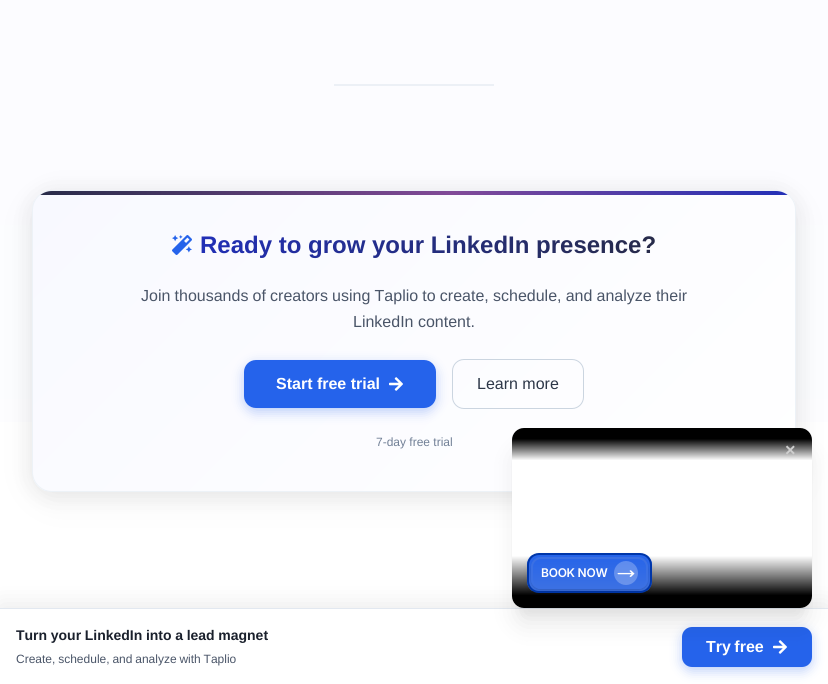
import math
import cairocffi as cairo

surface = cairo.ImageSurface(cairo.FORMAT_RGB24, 828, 684)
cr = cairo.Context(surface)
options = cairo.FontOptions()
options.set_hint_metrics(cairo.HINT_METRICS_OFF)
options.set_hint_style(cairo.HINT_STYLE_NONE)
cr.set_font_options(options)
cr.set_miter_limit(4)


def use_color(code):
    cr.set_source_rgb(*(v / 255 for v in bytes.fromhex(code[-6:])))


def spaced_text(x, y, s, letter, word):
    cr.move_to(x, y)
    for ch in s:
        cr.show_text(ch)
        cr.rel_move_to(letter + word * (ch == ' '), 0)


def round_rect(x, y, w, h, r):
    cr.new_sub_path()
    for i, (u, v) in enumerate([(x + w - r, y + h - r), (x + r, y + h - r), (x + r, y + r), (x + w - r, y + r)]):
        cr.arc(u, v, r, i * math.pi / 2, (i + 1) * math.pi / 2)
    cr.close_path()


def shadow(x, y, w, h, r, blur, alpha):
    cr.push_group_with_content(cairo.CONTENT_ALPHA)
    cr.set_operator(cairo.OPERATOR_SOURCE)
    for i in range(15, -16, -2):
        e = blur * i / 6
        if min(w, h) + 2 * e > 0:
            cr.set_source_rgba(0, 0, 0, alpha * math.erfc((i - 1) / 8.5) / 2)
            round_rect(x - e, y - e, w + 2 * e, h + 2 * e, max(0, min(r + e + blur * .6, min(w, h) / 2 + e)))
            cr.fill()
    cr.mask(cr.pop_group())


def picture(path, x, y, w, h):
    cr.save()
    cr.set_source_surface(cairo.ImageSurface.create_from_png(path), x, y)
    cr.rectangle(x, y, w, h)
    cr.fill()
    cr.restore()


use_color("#ffffff")
cr.paint()
gradient = cairo.LinearGradient(414, -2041, 414, 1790)
gradient.add_color_stop_rgba(0, 0.973, 0.976, 1, 1)
gradient.add_color_stop_rgba(1, 1, 1, 1, 1)
cr.set_source(gradient)
cr.rectangle(0, 0, 828, 422)
cr.fill()
use_color("#ecf0f6")
cr.rectangle(334, 84, 160, 2)
cr.fill()
use_color("#000000")
shadow(32, 198, 764, 302, 20, 24, 0.04)
shadow(32, 194, 764, 302, 20, 12, 0.08)
cr.save()
round_rect(32, 190, 764, 302, 20)
cr.clip()
gradient = cairo.LinearGradient(148, 76, 680, 607)
gradient.add_color_stop_rgba(0, 0.973, 0.976, 1, 1)
gradient.add_color_stop_rgba(1, 1, 1, 1, 1)
cr.set_source(gradient)
cr.rectangle(33, 191, 762, 300)
cr.fill()
cr.restore()
round_rect(32.5, 190.5, 763, 301, 19.5)
use_color("#edf2f7")
cr.set_line_width(1)
cr.stroke()
cr.save()
round_rect(33, 191, 762, 300, 19)
cr.clip()
gradient = cairo.LinearGradient(33, 193, 795, 193)
gradient.add_color_stop_rgba(0, 0.153, 0.169, 0.282, 1)
gradient.add_color_stop_rgba(0.55, 0.506, 0.29, 0.596, 1)
gradient.add_color_stop_rgba(1, 0.129, 0.184, 0.718, 1)
cr.set_source(gradient)
cr.rectangle(33, 191, 762, 4)
cr.fill()
cr.restore()
picture("img1.png", 172, 235, 20, 20)
cr.select_font_face("Liberation Sans", cairo.FONT_SLANT_NORMAL, cairo.FONT_WEIGHT_BOLD)
cr.set_font_size(24)
gradient = cairo.LinearGradient(646, 299, 210, 191)
gradient.add_color_stop_rgba(0, 0.153, 0.169, 0.282, 1)
gradient.add_color_stop_rgba(1, 0.129, 0.184, 0.718, 1)
cr.set_source(gradient)
cr.move_to(200, 253)
cr.show_text("Ready to grow your LinkedIn presence?")
cr.select_font_face("Liberation Sans")
cr.set_font_size(16)
use_color("#4a5568")
spaced_text(141, 301, "Join thousands of creators using Taplio to create, schedule, and analyze their", 0, -0.25)
cr.move_to(353, 327)
cr.show_text("LinkedIn content.")
use_color("#2563eb")
shadow(244, 364, 192, 48, 12, 6, 0.3)
use_color("#2563eb")
round_rect(244, 360, 192, 48, 12)
cr.fill()
cr.select_font_face("Liberation Sans", cairo.FONT_SLANT_NORMAL, cairo.FONT_WEIGHT_BOLD)
use_color("#ffffff")
cr.move_to(276, 389)
cr.show_text("Start free trial")
picture("img2.png", 389, 377, 14, 14)
round_rect(452.5, 359.5, 131, 49, 11.5)
use_color("#cbd5e0")
cr.stroke()
cr.select_font_face("Liberation Sans")
use_color("#2d3748")
cr.move_to(477, 389)
cr.show_text("Learn more")
cr.set_font_size(12)
use_color("#718096")
cr.move_to(376, 446)
cr.show_text("7-day free trial")
use_color("#000000")
shadow(0, 604, 828, 76, 0, 12, 0.08)
use_color("#ffffff")
cr.rectangle(0, 609, 828, 75)
cr.fill()
use_color("#e2e8f0")
cr.rectangle(0, 608, 828, 1)
cr.fill()
cr.select_font_face("Liberation Sans", cairo.FONT_SLANT_NORMAL, cairo.FONT_WEIGHT_BOLD)
cr.set_font_size(14)
use_color("#1a202c")
spaced_text(16, 640, "Turn your LinkedIn into a lead magnet", 0, -0.25)
cr.select_font_face("Liberation Sans")
cr.set_font_size(12)
use_color("#4a5568")
spaced_text(16, 663, "Create, schedule, and analyze with Taplio", 0, -0.5)
use_color("#2563eb")
shadow(682, 631, 130, 40, 10, 6, 0.3)
use_color("#2563eb")
round_rect(682, 627, 130, 40, 10)
cr.fill()
cr.select_font_face("Liberation Sans", cairo.FONT_SLANT_NORMAL, cairo.FONT_WEIGHT_BOLD)
cr.set_font_size(16)
use_color("#ffffff")
spaced_text(706, 652, "Try free", 0, -1)
picture("img2.png", 773, 640, 14, 14)
use_color("#000000")
shadow(517, 443, 290, 170, 7, 5, 0.04)
shadow(517, 453, 290, 170, 7, 12.5, 0.1)
use_color("#ffffff")
round_rect(512, 428, 300, 180, 12)
cr.fill()
gradient = cairo.LinearGradient(662, 428, 662, 608)
gradient.add_color_stop_rgba(0.71, 0, 0, 0, 0)
gradient.add_color_stop_rgba(0.93, 0, 0, 0, 1)
cr.set_source(gradient)
round_rect(512, 428, 300, 180, 12)
cr.fill()
gradient = cairo.LinearGradient(662, 428, 662, 608)
gradient.add_color_stop_rgba(0.06, 0, 0, 0, 1)
gradient.add_color_stop_rgba(0.18, 0, 0, 0, 0)
cr.set_source(gradient)
round_rect(512, 428, 300, 180, 12)
cr.fill()
cr.set_font_size(18)
use_color("#cecece")
cr.move_to(785, 456)
cr.show_text("×")
use_color("#000000")
shadow(527, 556, 125, 40, 12, 3, 0.08)
cr.save()
round_rect(527, 553, 125, 40, 12)
cr.clip()
gradient = cairo.LinearGradient(590, 591, 590, 555)
gradient.add_color_stop_rgba(0.1, 0.231, 0.439, 0.89, 1)
gradient.add_color_stop_rgba(1, 0.149, 0.392, 0.914, 1)
cr.set_source(gradient)
cr.rectangle(527, 555, 125, 36)
cr.fill()
cr.restore()
round_rect(528, 554, 123, 38, 11)
use_color("#0036a9")
cr.set_line_width(2)
cr.stroke()
cr.save()
cr.set_fill_rule(cairo.FILL_RULE_EVEN_ODD)
cr.new_path()
cr.move_to(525, 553)
cr.line_to(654, 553)
cr.line_to(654, 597)
cr.line_to(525, 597)
cr.close_path()
cr.move_to(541, 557)
cr.line_to(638, 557)
cr.curve_to(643.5, 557, 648, 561.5, 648, 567)
cr.line_to(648, 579)
cr.curve_to(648, 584.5, 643.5, 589, 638, 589)
cr.line_to(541, 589)
cr.curve_to(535.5, 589, 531, 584.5, 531, 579)
cr.line_to(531, 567)
cr.curve_to(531, 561.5, 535.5, 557, 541, 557)
cr.close_path()
cr.clip()
use_color("#000000")
shadow(531, 559, 117, 32, 10, 1.5, 0.16)
cr.restore()
round_rect(532, 558, 115, 30, 9)
use_color("#3b70e3")
cr.stroke()
cr.select_font_face("Inter SemiBold")
cr.set_font_size(12)
use_color("#ffffff")
spaced_text(541, 577, "BOOK NOW", -0.25, 0)
picture("img3.png", 617, 570, 18, 7)
cr.set_source_rgba(1, 1, 1, 0.25)
cr.arc(626, 573, 12, 0, 2 * math.pi)
cr.fill()
surface.write_to_png("result.png")
